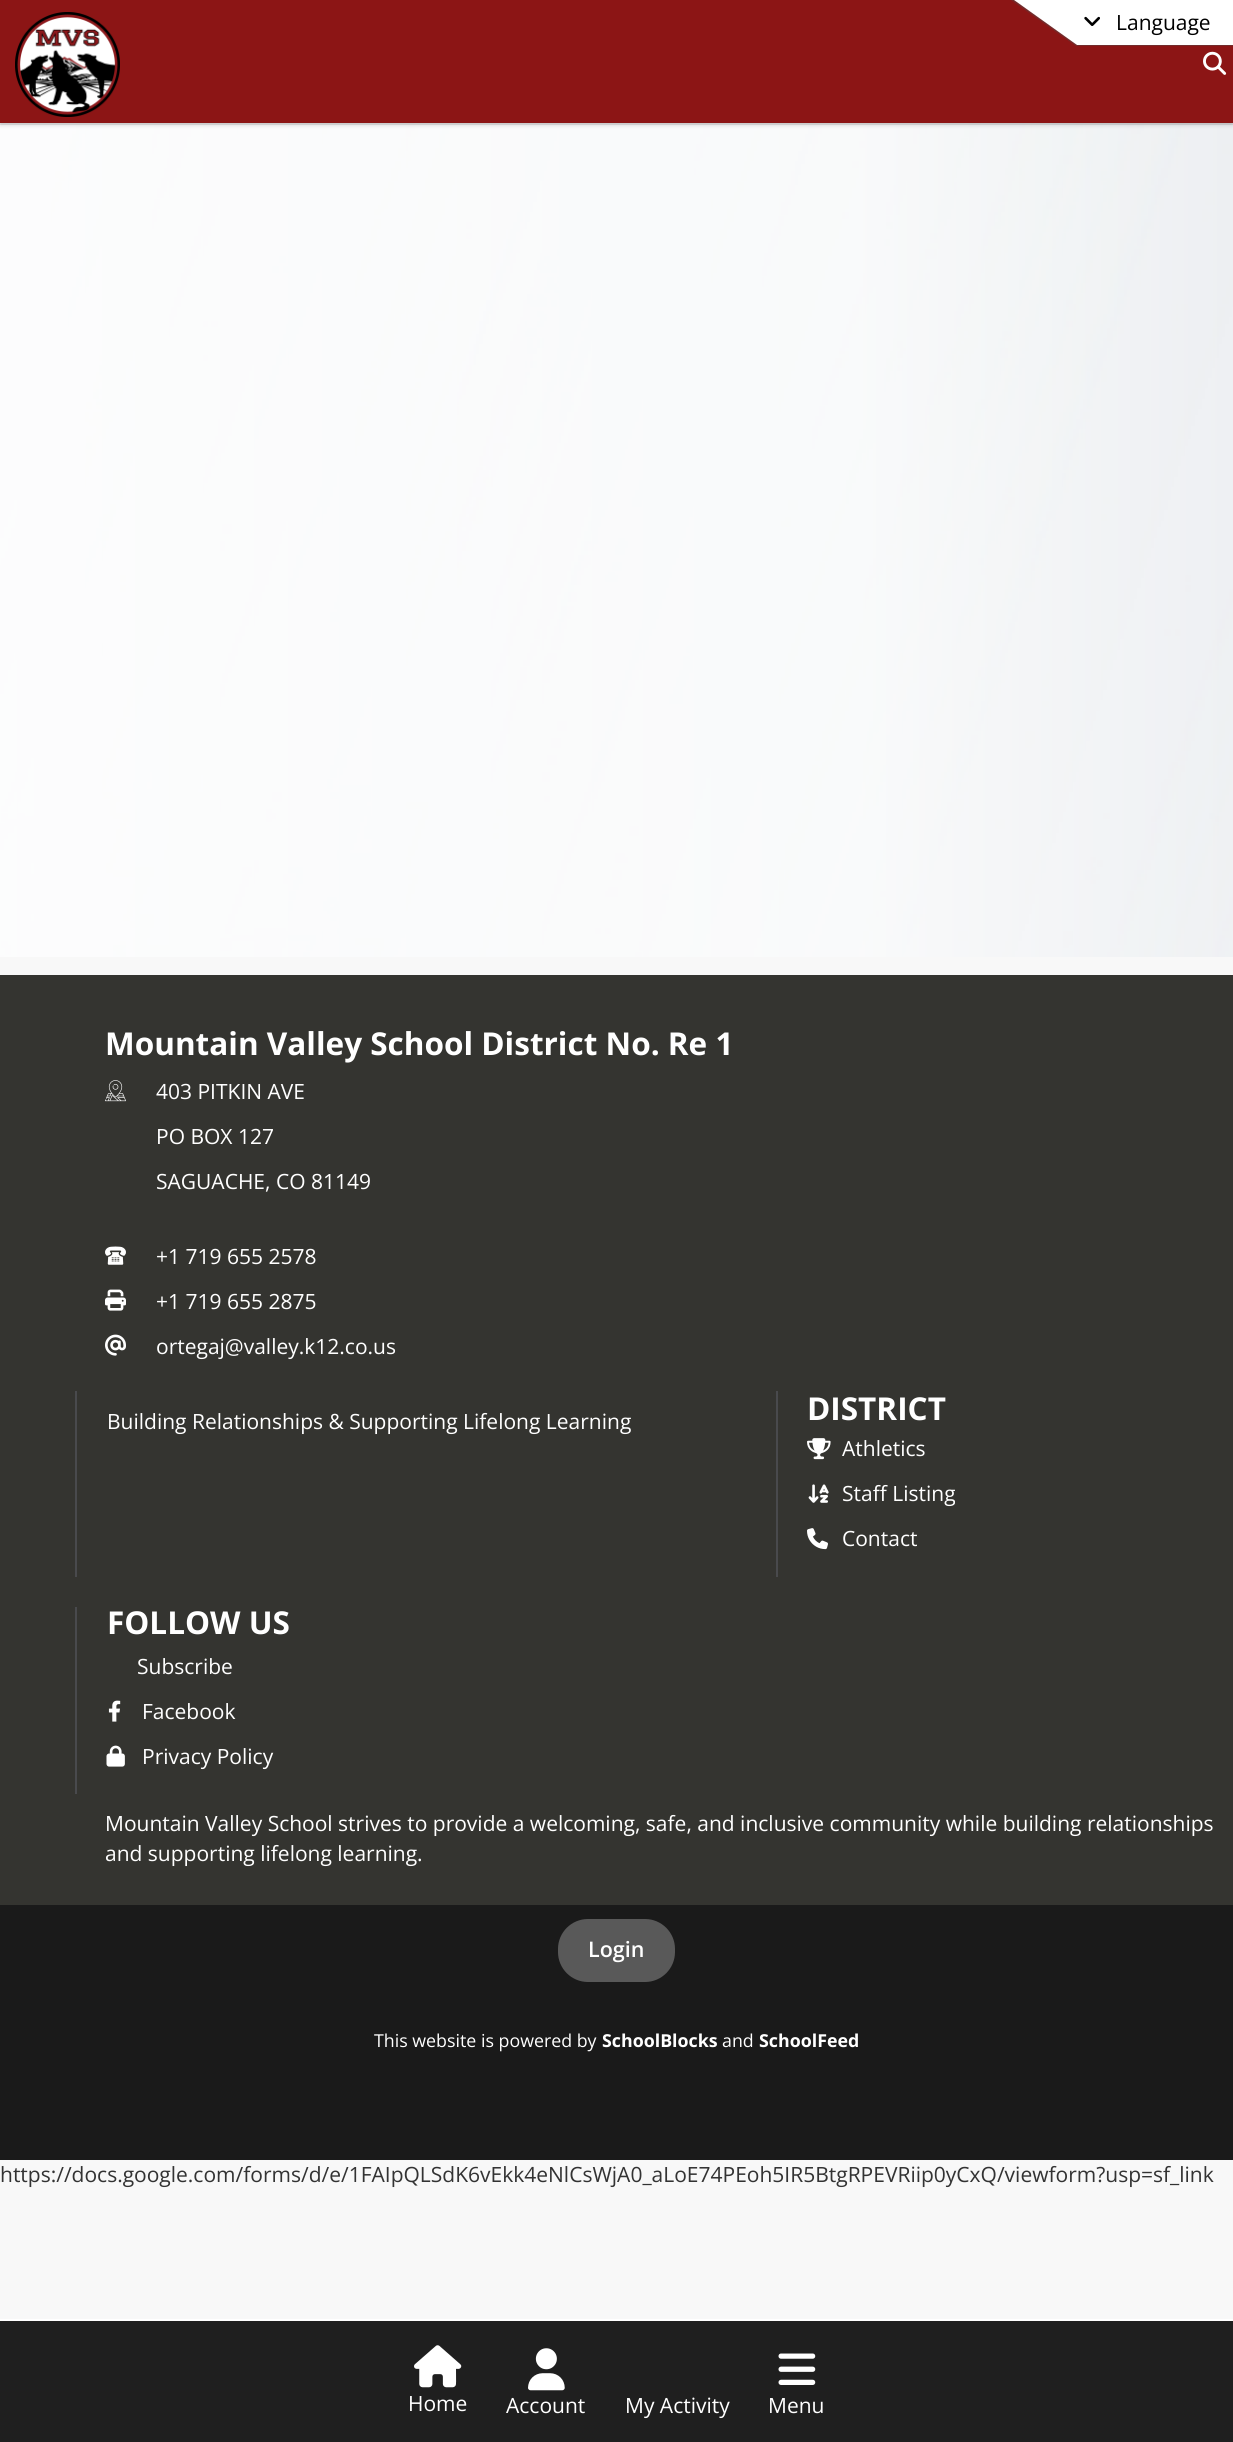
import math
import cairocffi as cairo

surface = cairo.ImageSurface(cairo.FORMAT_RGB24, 1233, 2442)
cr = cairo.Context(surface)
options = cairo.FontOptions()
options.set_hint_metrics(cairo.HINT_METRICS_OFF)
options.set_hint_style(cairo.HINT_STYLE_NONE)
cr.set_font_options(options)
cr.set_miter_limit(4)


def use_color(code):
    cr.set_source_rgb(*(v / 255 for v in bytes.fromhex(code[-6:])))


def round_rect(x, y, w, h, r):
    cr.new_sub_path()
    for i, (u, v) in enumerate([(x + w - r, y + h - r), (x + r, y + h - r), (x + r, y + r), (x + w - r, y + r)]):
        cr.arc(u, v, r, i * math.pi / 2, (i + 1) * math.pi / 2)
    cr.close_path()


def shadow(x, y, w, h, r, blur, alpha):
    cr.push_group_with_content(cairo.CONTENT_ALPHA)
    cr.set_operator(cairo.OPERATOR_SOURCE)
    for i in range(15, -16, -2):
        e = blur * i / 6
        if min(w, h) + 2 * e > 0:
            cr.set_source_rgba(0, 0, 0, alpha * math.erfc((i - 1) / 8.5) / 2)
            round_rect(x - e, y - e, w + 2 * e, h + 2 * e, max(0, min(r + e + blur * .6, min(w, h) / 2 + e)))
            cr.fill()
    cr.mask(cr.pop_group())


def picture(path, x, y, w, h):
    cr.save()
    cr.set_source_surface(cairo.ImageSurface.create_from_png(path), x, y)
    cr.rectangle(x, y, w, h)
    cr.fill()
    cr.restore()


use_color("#f8f8f8")
cr.paint()
picture("img1.png", 0, 123, 1233, 834)
cr.set_source_rgba(0, 0, 0, 0.1)
cr.rectangle(0, 123, 1233, 2)
cr.fill()
use_color("#000000")
shadow(0, 3, 1233, 123, 0, 1.5, 0.1)
use_color("#8c1515")
cr.rectangle(0, 0, 1233, 123)
cr.fill()
picture("img2.png", 15, 12, 105, 105)
picture("img3.png", 1203, 51, 24, 24)
use_color("#722b2b")
cr.new_path()
cr.move_to(1011, 0)
cr.line_to(1076, 46)
cr.line_to(1233, 46)
cr.line_to(1233, 0)
cr.close_path()
cr.fill()
use_color("#ffffff")
cr.new_path()
cr.move_to(1014, 0)
cr.line_to(1077, 45)
cr.line_to(1233, 45)
cr.line_to(1233, 0)
cr.close_path()
cr.fill()
picture("img4.png", 1084, 16, 16, 10)
cr.select_font_face("Open Sans")
cr.set_font_size(21)
use_color("#000000")
cr.move_to(1116, 30)
cr.show_text("Language")
use_color("#343430")
cr.rectangle(0, 975, 1233, 930)
cr.fill()
cr.select_font_face("Open Sans", cairo.FONT_SLANT_NORMAL, cairo.FONT_WEIGHT_BOLD)
cr.set_font_size(31.5)
use_color("#ffffff")
cr.move_to(105, 1055)
cr.show_text("Mountain Valley School District No. Re 1")
picture("img5.png", 105, 1080, 21, 22)
cr.select_font_face("Open Sans")
cr.set_font_size(21)
cr.move_to(156, 1099)
cr.show_text("403 PITKIN AVE")
cr.move_to(156, 1144)
cr.show_text("PO BOX 127")
cr.move_to(156, 1189)
cr.show_text("SAGUACHE, CO 81149")
picture("img6.png", 105, 1246, 21, 19)
cr.move_to(156, 1264)
cr.show_text("+1 719 655 2578")
picture("img7.png", 105, 1289, 21, 22)
cr.move_to(156, 1309)
cr.show_text("+1 719 655 2875")
picture("img8.png", 105, 1334, 21, 22)
cr.move_to(156, 1354)
cr.show_text("ortegaj@valley.k12.co.us")
use_color("#494a4d")
cr.rectangle(75, 1391, 2, 186)
cr.fill()
use_color("#ffffff")
cr.move_to(107, 1429)
cr.show_text("Building Relationships & Supporting Lifelong Learning")
use_color("#494a4d")
cr.rectangle(776, 1391, 2, 186)
cr.fill()
cr.select_font_face("Open Sans", cairo.FONT_SLANT_NORMAL, cairo.FONT_WEIGHT_BOLD)
cr.set_font_size(31.5)
use_color("#ffffff")
cr.move_to(807, 1420)
cr.show_text("DISTRICT")
picture("img9.png", 807, 1438, 24, 22)
cr.select_font_face("Open Sans")
cr.set_font_size(21)
cr.move_to(842, 1456)
cr.show_text("Athletics")
picture("img10.png", 808, 1484, 21, 19)
cr.move_to(842, 1501)
cr.show_text("Staff Listing")
picture("img11.png", 807, 1528, 21, 22)
cr.move_to(842, 1546)
cr.show_text("Contact")
use_color("#494a4d")
cr.rectangle(75, 1607, 2, 187)
cr.fill()
cr.select_font_face("Open Sans", cairo.FONT_SLANT_NORMAL, cairo.FONT_WEIGHT_BOLD)
cr.set_font_size(31.5)
use_color("#ffffff")
cr.move_to(107, 1634)
cr.show_text("FOLLOW US")
cr.select_font_face("Open Sans")
cr.set_font_size(21)
cr.move_to(137, 1674)
cr.show_text("Subscribe")
picture("img12.png", 108, 1700, 13, 22)
cr.move_to(142, 1719)
cr.show_text("Facebook")
picture("img13.png", 106, 1745, 19, 22)
cr.move_to(142, 1764)
cr.show_text("Privacy Policy")
cr.move_to(105, 1831)
cr.show_text("Mountain Valley School strives to provide a welcoming, safe, and inclusive community while building relationships")
cr.move_to(105, 1861)
cr.show_text("and supporting lifelong learning.")
use_color("#1a1a1a")
cr.rectangle(0, 1905, 1233, 255)
cr.fill()
use_color("#595959")
round_rect(558, 1919, 117, 63, 30)
cr.fill()
cr.select_font_face("Open Sans SemiBold")
cr.set_font_size(21.5)
use_color("#ffffff")
cr.move_to(588, 1957)
cr.show_text("Login")
cr.select_font_face("Open Sans")
cr.set_font_size(17.8)
cr.move_to(374, 2047)
cr.show_text("This website is powered by")
cr.select_font_face("Open Sans", cairo.FONT_SLANT_NORMAL, cairo.FONT_WEIGHT_BOLD)
cr.move_to(602, 2047)
cr.show_text("SchoolBlocks")
cr.select_font_face("Open Sans")
cr.move_to(722, 2047)
cr.show_text("and")
cr.select_font_face("Open Sans", cairo.FONT_SLANT_NORMAL, cairo.FONT_WEIGHT_BOLD)
cr.move_to(759, 2047)
cr.show_text("SchoolFeed")
cr.select_font_face("Open Sans")
cr.set_font_size(21)
use_color("#333333")
cr.move_to(0, 2182)
cr.show_text("https://docs.google.com/forms/d/e/1FAIpQLSdK6vEkk4eNlCsWjA0_aLoE74PEoh5IR5BtgRPEVRiip0yCxQ/viewform?usp=sf_link")
use_color("#1f1f1f")
cr.rectangle(0, 2321, 1233, 121)
cr.fill()
use_color("#ffffff")
cr.rectangle(0, 2319, 1233, 2)
cr.fill()
picture("img14.png", 414, 2345, 48, 43)
cr.move_to(408, 2411)
cr.show_text("Home")
picture("img15.png", 528, 2348, 37, 43)
cr.move_to(506, 2413)
cr.show_text("Account")
cr.move_to(625, 2413)
cr.show_text("My Activity")
picture("img16.png", 778, 2353, 38, 32)
cr.move_to(768, 2413)
cr.show_text("Menu")
surface.write_to_png("result.png")
